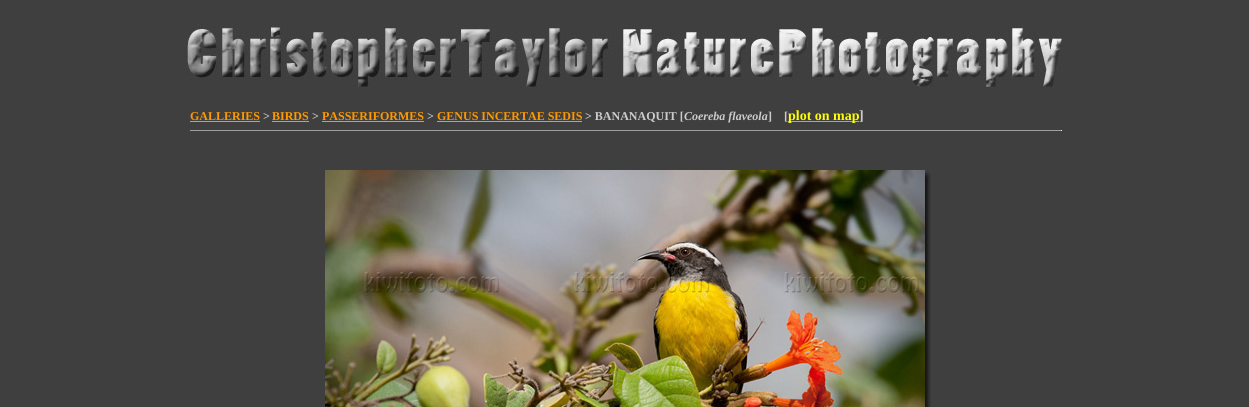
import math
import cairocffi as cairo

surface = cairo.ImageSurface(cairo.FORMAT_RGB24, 1249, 407)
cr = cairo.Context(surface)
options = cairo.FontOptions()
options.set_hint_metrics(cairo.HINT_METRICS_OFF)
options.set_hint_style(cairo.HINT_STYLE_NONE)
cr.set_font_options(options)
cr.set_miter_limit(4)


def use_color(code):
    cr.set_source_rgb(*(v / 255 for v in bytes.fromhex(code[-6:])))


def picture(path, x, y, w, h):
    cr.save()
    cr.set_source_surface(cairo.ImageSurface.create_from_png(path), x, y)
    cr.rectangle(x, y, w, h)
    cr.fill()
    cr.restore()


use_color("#3f3f3f")
cr.paint()
picture("img1.png", 184, 24, 879, 64)
cr.select_font_face("Liberation Serif", cairo.FONT_SLANT_NORMAL, cairo.FONT_WEIGHT_BOLD)
cr.set_font_size(12)
use_color("#ff9900")
cr.move_to(190, 120)
cr.show_text("GALLERIES")
cr.rectangle(190, 121, 70, 1)
cr.fill()
use_color("#cccccc")
cr.move_to(263, 120)
cr.show_text(">")
use_color("#ff9900")
cr.move_to(272, 120)
cr.show_text("BIRDS")
cr.rectangle(272, 121, 37, 1)
cr.fill()
use_color("#cccccc")
cr.move_to(312, 120)
cr.show_text(">")
use_color("#ff9900")
cr.move_to(322, 120)
cr.show_text("PASSERIFORMES")
cr.rectangle(322, 121, 102, 1)
cr.fill()
use_color("#cccccc")
cr.move_to(427, 120)
cr.show_text(">")
use_color("#ff9900")
cr.move_to(437, 120)
cr.show_text("GENUS INCERTAE SEDIS")
cr.rectangle(437, 121, 145, 1)
cr.fill()
use_color("#cccccc")
cr.move_to(585, 120)
cr.show_text("> BANANAQUIT [")
cr.select_font_face("Liberation Serif", cairo.FONT_SLANT_ITALIC, cairo.FONT_WEIGHT_BOLD)
cr.move_to(684, 120)
cr.show_text("Coereba flaveola")
cr.select_font_face("Liberation Serif", cairo.FONT_SLANT_NORMAL, cairo.FONT_WEIGHT_BOLD)
cr.move_to(768, 120)
cr.show_text("]    [")
use_color("#ff9900")
cr.rectangle(788, 121, 71, 1)
cr.fill()
cr.set_font_size(14)
use_color("#ffff00")
cr.move_to(788, 120)
cr.show_text("plot on map")
use_color("#cccccc")
cr.move_to(859, 120)
cr.show_text("]")
use_color("#9f9f9f")
cr.rectangle(190, 130, 872, 1)
cr.fill()
use_color("#eeeeee")
cr.rectangle(1061, 130, 1, 1)
cr.fill()
picture("img2.png", 325, 170, 600, 237)
picture("img3.png", 925, 171, 6, 9)
picture("img4.png", 925, 180, 6, 227)
surface.write_to_png("result.png")
